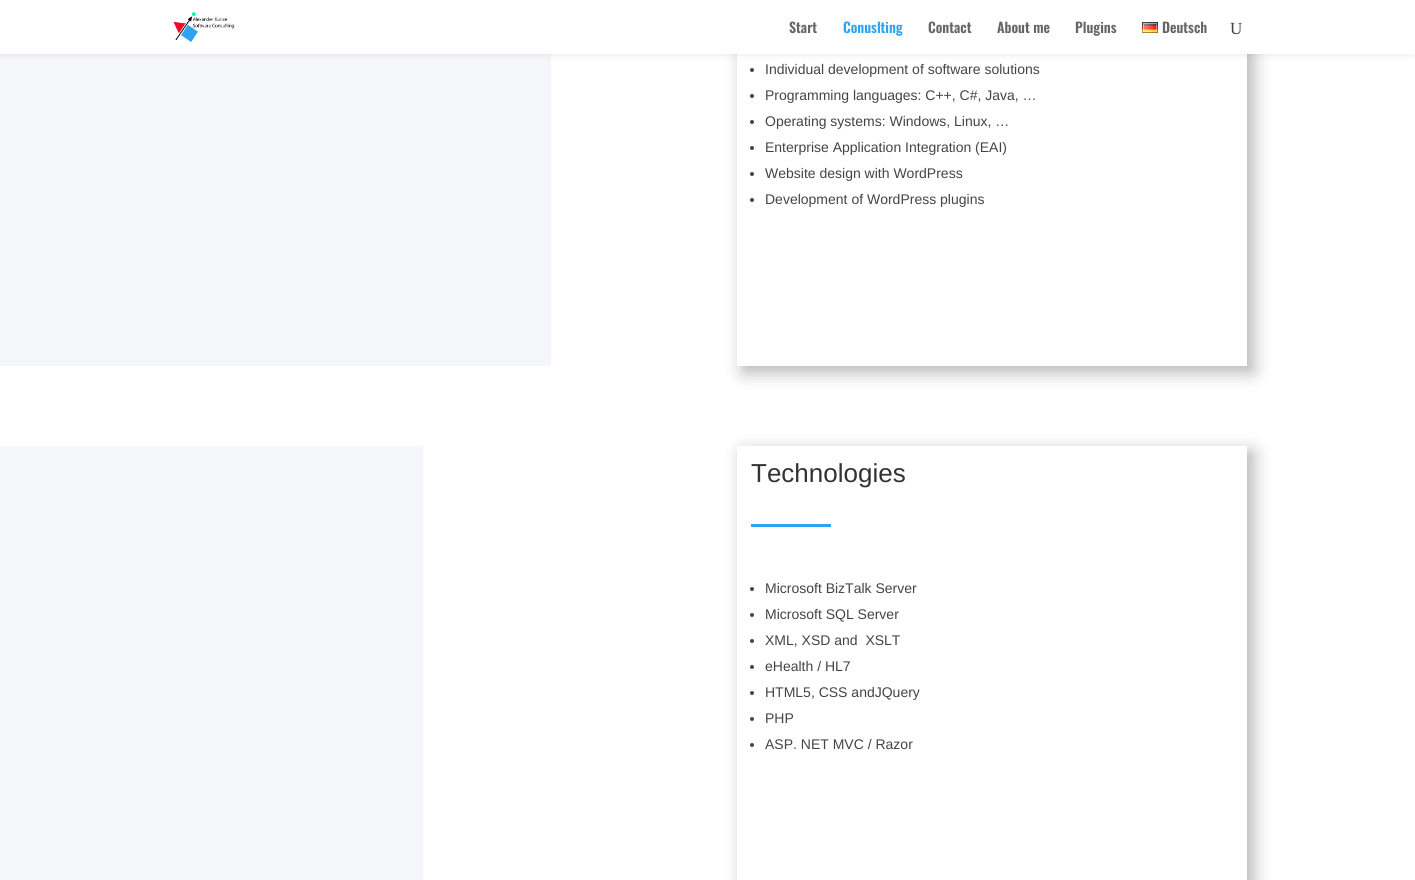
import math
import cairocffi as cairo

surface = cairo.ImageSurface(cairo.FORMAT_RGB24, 1415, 880)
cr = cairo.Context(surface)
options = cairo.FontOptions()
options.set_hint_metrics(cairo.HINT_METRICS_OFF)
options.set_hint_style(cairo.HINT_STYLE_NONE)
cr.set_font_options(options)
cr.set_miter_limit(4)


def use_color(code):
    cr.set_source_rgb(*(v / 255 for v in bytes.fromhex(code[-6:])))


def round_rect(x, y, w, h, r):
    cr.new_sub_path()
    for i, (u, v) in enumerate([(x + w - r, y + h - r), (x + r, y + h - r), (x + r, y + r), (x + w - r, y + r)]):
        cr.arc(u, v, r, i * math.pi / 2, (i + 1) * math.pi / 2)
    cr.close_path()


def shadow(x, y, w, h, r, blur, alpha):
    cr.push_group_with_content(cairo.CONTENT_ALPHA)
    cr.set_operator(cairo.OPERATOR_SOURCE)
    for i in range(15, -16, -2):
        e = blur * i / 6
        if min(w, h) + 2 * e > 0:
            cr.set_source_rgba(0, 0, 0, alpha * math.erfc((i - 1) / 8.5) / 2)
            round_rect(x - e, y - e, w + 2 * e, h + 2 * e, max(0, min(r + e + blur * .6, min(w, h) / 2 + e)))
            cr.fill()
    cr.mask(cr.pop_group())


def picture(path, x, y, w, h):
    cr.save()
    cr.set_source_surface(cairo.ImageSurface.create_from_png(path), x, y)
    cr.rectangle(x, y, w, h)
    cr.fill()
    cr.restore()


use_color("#ffffff")
cr.paint()
use_color("#f5f6f9")
cr.rectangle(0, 54, 551, 312)
cr.fill()
use_color("#000000")
shadow(0, 0, 1415, 54, 0, 3.5, 0.1)
cr.save()
cr.set_fill_rule(cairo.FILL_RULE_EVEN_ODD)
cr.new_path()
cr.move_to(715, 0)
cr.line_to(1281, 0)
cr.line_to(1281, 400)
cr.line_to(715, 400)
cr.close_path()
cr.move_to(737, -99)
cr.line_to(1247, -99)
cr.line_to(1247, 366)
cr.line_to(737, 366)
cr.close_path()
cr.clip()
shadow(743, -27, 510, 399, 0, 9, 0.3)
cr.restore()
use_color("#ffffff")
cr.rectangle(0, 0, 1415, 54)
cr.fill()
picture("img1.png", 173, 12, 62, 30)
cr.select_font_face("Oswald SemiBold")
cr.set_font_size(14)
use_color("#666666")
cr.move_to(789, 33)
cr.show_text("Start")
use_color("#2ea3f2")
cr.move_to(843, 33)
cr.show_text("Conuslting")
use_color("#666666")
cr.move_to(928, 33)
cr.show_text("Contact")
cr.move_to(997, 33)
cr.show_text("About me")
cr.move_to(1075, 33)
cr.show_text("Plugins")
picture("img2.png", 1142, 22, 16, 11)
cr.move_to(1162, 33)
cr.show_text("Deutsch")
cr.select_font_face("Liberation Serif")
cr.set_font_size(17)
use_color("#444444")
cr.move_to(1230, 34)
cr.show_text("U")
cr.new_path()
cr.arc(752, 70, 2, 0, 2 * math.pi)
cr.fill()
cr.select_font_face("Liberation Sans")
cr.set_font_size(14)
cr.move_to(765, 74)
cr.show_text("Individual development of software solutions")
cr.new_path()
cr.arc(752, 96, 2, 0, 2 * math.pi)
cr.fill()
cr.move_to(765, 100)
cr.show_text("Programming languages: C++, C#, Java, …")
cr.new_path()
cr.arc(752, 122, 2, 0, 2 * math.pi)
cr.fill()
cr.move_to(765, 126)
cr.show_text("Operating systems: Windows, Linux, …")
cr.new_path()
cr.arc(752, 148, 2, 0, 2 * math.pi)
cr.fill()
cr.move_to(765, 152)
cr.show_text("Enterprise Application Integration (EAI)")
cr.new_path()
cr.arc(752, 174, 2, 0, 2 * math.pi)
cr.fill()
cr.move_to(765, 178)
cr.show_text("Website design with WordPress")
cr.new_path()
cr.arc(752, 200, 2, 0, 2 * math.pi)
cr.fill()
cr.move_to(765, 204)
cr.show_text("Development of WordPress plugins")
use_color("#f5f6f9")
cr.rectangle(0, 446, 423, 434)
cr.fill()
cr.save()
cr.set_fill_rule(cairo.FILL_RULE_EVEN_ODD)
cr.new_path()
cr.move_to(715, 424)
cr.line_to(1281, 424)
cr.line_to(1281, 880)
cr.line_to(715, 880)
cr.close_path()
cr.move_to(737, 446)
cr.line_to(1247, 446)
cr.line_to(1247, 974)
cr.line_to(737, 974)
cr.close_path()
cr.clip()
use_color("#000000")
shadow(743, 452, 510, 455, 0, 9, 0.3)
cr.restore()
cr.set_font_size(26)
use_color("#333333")
cr.move_to(751, 482)
cr.show_text("Technologies")
use_color("#2ea3f2")
cr.rectangle(751, 524, 80, 3)
cr.fill()
use_color("#444444")
cr.arc(752, 589, 2, 0, 2 * math.pi)
cr.fill()
cr.set_font_size(14)
cr.move_to(765, 593)
cr.show_text("Microsoft BizTalk Server")
cr.new_path()
cr.arc(752, 615, 2, 0, 2 * math.pi)
cr.fill()
cr.move_to(765, 619)
cr.show_text("Microsoft SQL Server")
cr.new_path()
cr.arc(752, 641, 2, 0, 2 * math.pi)
cr.fill()
cr.move_to(765, 645)
cr.show_text("XML, XSD and  XSLT")
cr.new_path()
cr.arc(752, 667, 2, 0, 2 * math.pi)
cr.fill()
cr.move_to(765, 671)
cr.show_text("eHealth / HL7")
cr.new_path()
cr.arc(752, 693, 2, 0, 2 * math.pi)
cr.fill()
cr.move_to(765, 697)
cr.show_text("HTML5, CSS andJQuery")
cr.new_path()
cr.arc(752, 719, 2, 0, 2 * math.pi)
cr.fill()
cr.move_to(765, 723)
cr.show_text("PHP")
cr.new_path()
cr.arc(752, 745, 2, 0, 2 * math.pi)
cr.fill()
cr.move_to(765, 749)
cr.show_text("ASP. NET MVC / Razor")
surface.write_to_png("result.png")
